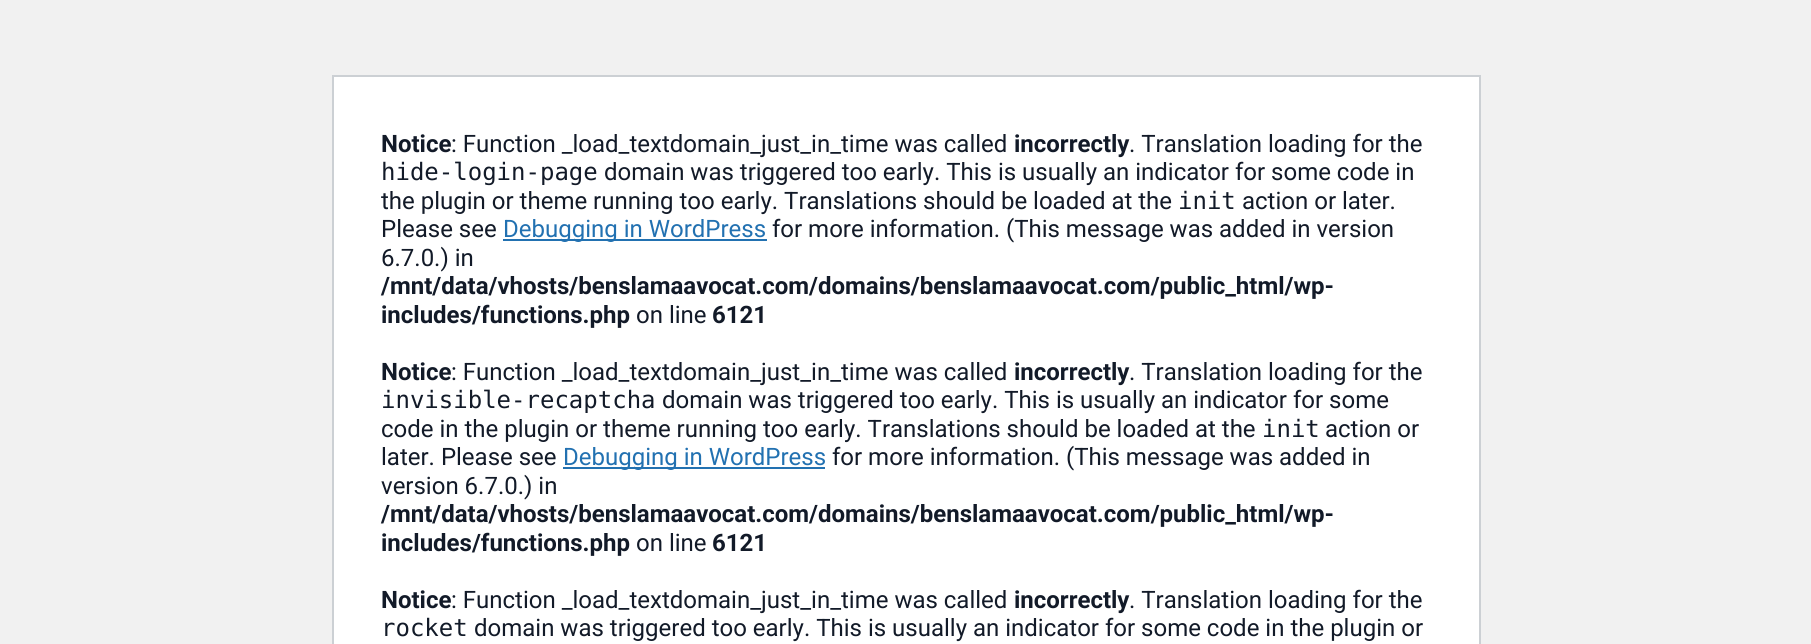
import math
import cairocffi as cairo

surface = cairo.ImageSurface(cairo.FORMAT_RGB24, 1811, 644)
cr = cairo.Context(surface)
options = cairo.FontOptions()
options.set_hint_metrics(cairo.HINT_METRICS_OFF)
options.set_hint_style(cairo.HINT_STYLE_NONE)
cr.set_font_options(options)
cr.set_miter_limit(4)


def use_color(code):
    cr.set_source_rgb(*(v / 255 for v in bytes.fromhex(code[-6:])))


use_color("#f1f1f1")
cr.paint()
use_color("#ffffff")
cr.rectangle(333, 76, 1147, 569)
cr.fill_preserve()
use_color("#ccd0d4")
cr.stroke()
cr.select_font_face("Roboto", cairo.FONT_SLANT_NORMAL, cairo.FONT_WEIGHT_BOLD)
cr.set_font_size(24)
use_color("#121a28")
cr.move_to(381, 152)
cr.show_text("Notice")
cr.select_font_face("Roboto")
cr.move_to(451, 152)
cr.show_text(": Function _load_textdomain_just_in_time was called")
cr.select_font_face("Roboto", cairo.FONT_SLANT_NORMAL, cairo.FONT_WEIGHT_BOLD)
cr.move_to(1014, 152)
cr.show_text("incorrectly")
cr.select_font_face("Roboto")
cr.move_to(1129, 152)
cr.show_text(". Translation loading for the")
cr.select_font_face("DejaVu Sans Mono")
cr.move_to(381, 180)
cr.show_text("hide-login-page")
cr.select_font_face("Roboto")
cr.move_to(604, 180)
cr.show_text("domain was triggered too early. This is usually an indicator for some code in")
cr.move_to(381, 209)
cr.show_text("the plugin or theme running too early. Translations should be loaded at the")
cr.select_font_face("DejaVu Sans Mono")
cr.move_to(1178, 209)
cr.show_text("init")
cr.select_font_face("Roboto")
cr.move_to(1242, 209)
cr.show_text("action or later.")
cr.move_to(381, 237)
cr.show_text("Please see")
use_color("#2271b1")
cr.rectangle(503, 239, 264, 2)
cr.fill()
cr.move_to(503, 237)
cr.show_text("Debugging in WordPress")
use_color("#121a28")
cr.move_to(772, 237)
cr.show_text("for more information. (This message was added in version")
cr.move_to(381, 266)
cr.show_text("6.7.0.) in")
cr.select_font_face("Roboto", cairo.FONT_SLANT_NORMAL, cairo.FONT_WEIGHT_BOLD)
cr.move_to(381, 294)
cr.show_text("/mnt/data/vhosts/benslamaavocat.com/domains/benslamaavocat.com/public_html/wp-")
cr.move_to(381, 323)
cr.show_text("includes/functions.php")
cr.select_font_face("Roboto")
cr.move_to(636, 323)
cr.show_text("on line")
cr.select_font_face("Roboto", cairo.FONT_SLANT_NORMAL, cairo.FONT_WEIGHT_BOLD)
cr.move_to(712, 323)
cr.show_text("6121")
cr.move_to(381, 380)
cr.show_text("Notice")
cr.select_font_face("Roboto")
cr.move_to(451, 380)
cr.show_text(": Function _load_textdomain_just_in_time was called")
cr.select_font_face("Roboto", cairo.FONT_SLANT_NORMAL, cairo.FONT_WEIGHT_BOLD)
cr.move_to(1014, 380)
cr.show_text("incorrectly")
cr.select_font_face("Roboto")
cr.move_to(1129, 380)
cr.show_text(". Translation loading for the")
cr.select_font_face("DejaVu Sans Mono")
cr.move_to(381, 408)
cr.show_text("invisible-recaptcha")
cr.select_font_face("Roboto")
cr.move_to(662, 408)
cr.show_text("domain was triggered too early. This is usually an indicator for some")
cr.move_to(381, 437)
cr.show_text("code in the plugin or theme running too early. Translations should be loaded at the")
cr.select_font_face("DejaVu Sans Mono")
cr.move_to(1262, 437)
cr.show_text("init")
cr.select_font_face("Roboto")
cr.move_to(1325, 437)
cr.show_text("action or")
cr.move_to(381, 465)
cr.show_text("later. Please see")
use_color("#2271b1")
cr.rectangle(563, 467, 262, 2)
cr.fill()
cr.move_to(563, 465)
cr.show_text("Debugging in WordPress")
use_color("#121a28")
cr.move_to(832, 465)
cr.show_text("for more information. (This message was added in")
cr.move_to(381, 494)
cr.show_text("version 6.7.0.) in")
cr.select_font_face("Roboto", cairo.FONT_SLANT_NORMAL, cairo.FONT_WEIGHT_BOLD)
cr.move_to(381, 522)
cr.show_text("/mnt/data/vhosts/benslamaavocat.com/domains/benslamaavocat.com/public_html/wp-")
cr.move_to(381, 551)
cr.show_text("includes/functions.php")
cr.select_font_face("Roboto")
cr.move_to(636, 551)
cr.show_text("on line")
cr.select_font_face("Roboto", cairo.FONT_SLANT_NORMAL, cairo.FONT_WEIGHT_BOLD)
cr.move_to(712, 551)
cr.show_text("6121")
cr.move_to(381, 608)
cr.show_text("Notice")
cr.select_font_face("Roboto")
cr.move_to(451, 608)
cr.show_text(": Function _load_textdomain_just_in_time was called")
cr.select_font_face("Roboto", cairo.FONT_SLANT_NORMAL, cairo.FONT_WEIGHT_BOLD)
cr.move_to(1014, 608)
cr.show_text("incorrectly")
cr.select_font_face("Roboto")
cr.move_to(1129, 608)
cr.show_text(". Translation loading for the")
cr.select_font_face("DejaVu Sans Mono")
cr.move_to(381, 636)
cr.show_text("rocket")
cr.select_font_face("Roboto")
cr.move_to(474, 636)
cr.show_text("domain was triggered too early. This is usually an indicator for some code in the plugin or")
surface.write_to_png("result.png")
